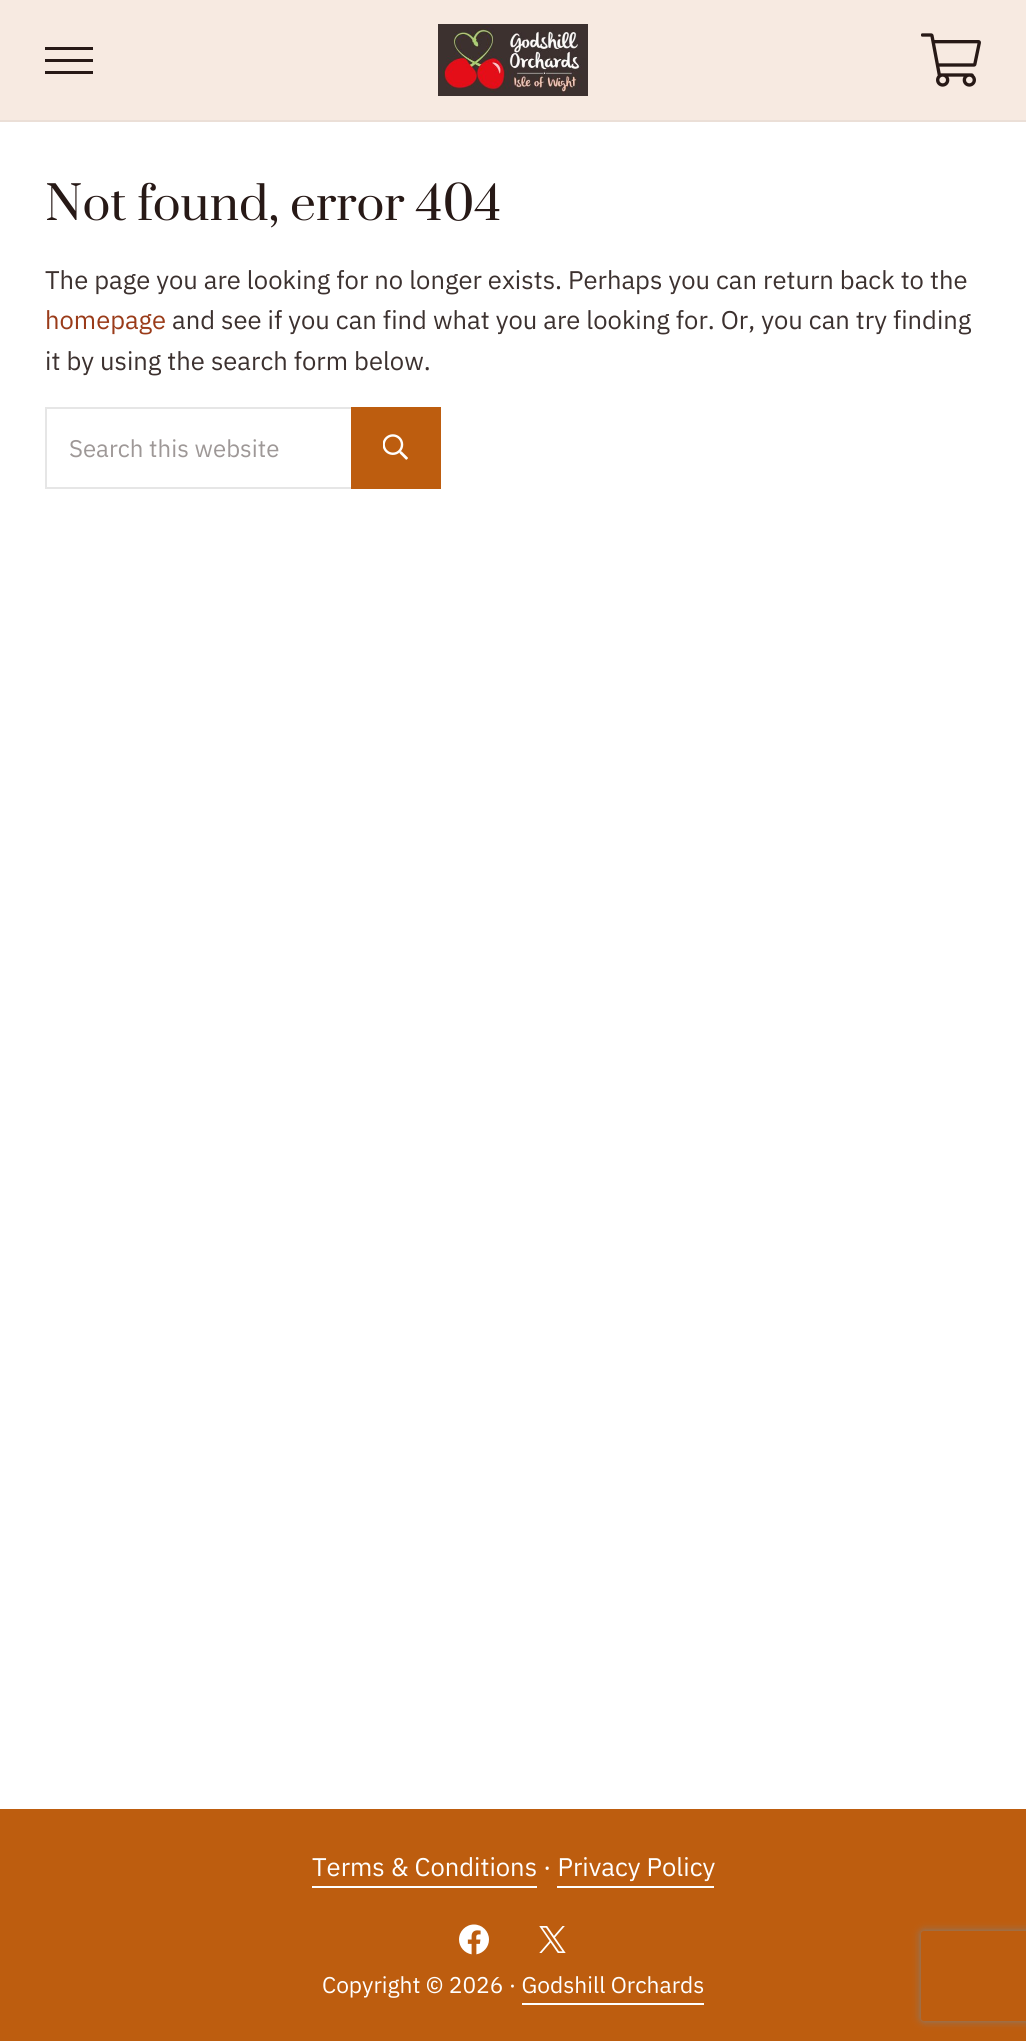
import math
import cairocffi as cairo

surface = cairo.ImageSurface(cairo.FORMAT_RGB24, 1026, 2041)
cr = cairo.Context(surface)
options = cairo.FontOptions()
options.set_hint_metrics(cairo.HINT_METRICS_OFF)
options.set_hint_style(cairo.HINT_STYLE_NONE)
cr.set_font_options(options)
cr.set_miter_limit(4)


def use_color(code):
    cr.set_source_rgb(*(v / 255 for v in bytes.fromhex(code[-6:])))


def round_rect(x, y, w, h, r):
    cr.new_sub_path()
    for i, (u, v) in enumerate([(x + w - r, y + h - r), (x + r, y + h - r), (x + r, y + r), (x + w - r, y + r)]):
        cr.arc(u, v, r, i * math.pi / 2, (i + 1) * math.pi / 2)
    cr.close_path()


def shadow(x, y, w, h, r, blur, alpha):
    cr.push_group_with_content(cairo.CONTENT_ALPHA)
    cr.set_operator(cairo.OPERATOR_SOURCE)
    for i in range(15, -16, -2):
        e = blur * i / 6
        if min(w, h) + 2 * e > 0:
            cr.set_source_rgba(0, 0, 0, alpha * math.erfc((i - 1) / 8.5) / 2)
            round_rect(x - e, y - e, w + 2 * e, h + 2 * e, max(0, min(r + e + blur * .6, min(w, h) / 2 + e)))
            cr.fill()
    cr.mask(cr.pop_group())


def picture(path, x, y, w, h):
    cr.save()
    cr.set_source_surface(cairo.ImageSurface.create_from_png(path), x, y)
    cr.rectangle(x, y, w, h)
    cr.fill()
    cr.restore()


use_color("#ffffff")
cr.paint()
use_color("#f7eae1")
cr.rectangle(0, 0, 1026, 120)
cr.fill()
use_color("#ebdfd7")
cr.rectangle(0, 120, 1026, 2)
cr.fill()
use_color("#271916")
cr.rectangle(45, 59, 48, 3)
cr.fill()
cr.rectangle(45, 47, 48, 3)
cr.fill()
cr.rectangle(45, 71, 48, 3)
cr.fill()
picture("img1.png", 438, 24, 150, 72)
picture("img2.png", 921, 33, 60, 54)
cr.select_font_face("Prata")
cr.set_font_size(46)
cr.move_to(45, 220)
cr.show_text("Not found, error 404")
cr.select_font_face("IBM Plex Sans")
cr.set_font_size(25.55)
use_color("#3c312f")
cr.move_to(45, 289)
cr.show_text("The page you are looking for no longer exists. Perhaps you can return back to the")
use_color("#9a3b19")
cr.move_to(45, 329)
cr.show_text("homepage")
use_color("#3c312f")
cr.move_to(172, 329)
cr.show_text("and see if you can find what you are looking for. Or, you can try finding")
cr.move_to(45, 370)
cr.show_text("it by using the search form below.")
cr.rectangle(46, 408, 336, 80)
use_color("#e6e6e6")
cr.stroke()
cr.set_font_size(24)
use_color("#9e9897")
cr.move_to(69, 457)
cr.show_text("Search this website")
use_color("#bd5d0f")
cr.rectangle(351, 407, 90, 82)
cr.fill()
picture("img3.png", 383, 434, 25, 26)
cr.rectangle(0, 1809, 1026, 232)
cr.fill()
cr.set_font_size(25.55)
use_color("#ffffff")
cr.move_to(312, 1876)
cr.show_text("Terms & Conditions · Privacy Policy")
cr.rectangle(312, 1886, 225, 2)
cr.fill()
cr.rectangle(557, 1886, 157, 2)
cr.fill()
picture("img4.png", 459, 1924, 30, 31)
picture("img5.png", 539, 1926, 27, 27)
cr.set_font_size(22.75)
cr.move_to(322, 1993)
cr.show_text("Copyright © 2026 · Godshill Orchards")
cr.rectangle(522, 2003, 182, 2)
cr.fill()
cr.save()
cr.set_fill_rule(cairo.FILL_RULE_EVEN_ODD)
cr.new_path()
cr.move_to(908, 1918)
cr.line_to(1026, 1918)
cr.line_to(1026, 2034)
cr.line_to(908, 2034)
cr.close_path()
cr.move_to(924, 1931)
cr.line_to(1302, 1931)
cr.curve_to(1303.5, 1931, 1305, 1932.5, 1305, 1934)
cr.line_to(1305, 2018)
cr.curve_to(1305, 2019.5, 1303.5, 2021, 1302, 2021)
cr.line_to(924, 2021)
cr.curve_to(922.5, 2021, 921, 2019.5, 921, 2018)
cr.line_to(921, 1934)
cr.curve_to(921, 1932.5, 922.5, 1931, 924, 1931)
cr.close_path()
cr.clip()
use_color("#808080")
shadow(921, 1931, 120, 90, 3, 4, 1)
cr.restore()
surface.write_to_png("result.png")
